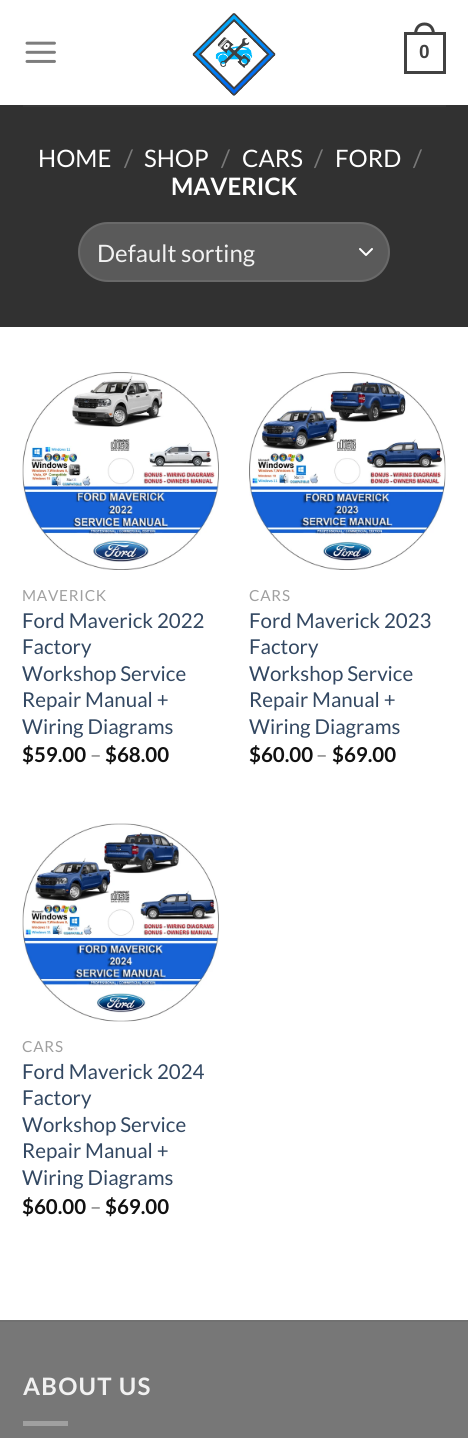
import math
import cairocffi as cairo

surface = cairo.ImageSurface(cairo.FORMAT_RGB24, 468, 1438)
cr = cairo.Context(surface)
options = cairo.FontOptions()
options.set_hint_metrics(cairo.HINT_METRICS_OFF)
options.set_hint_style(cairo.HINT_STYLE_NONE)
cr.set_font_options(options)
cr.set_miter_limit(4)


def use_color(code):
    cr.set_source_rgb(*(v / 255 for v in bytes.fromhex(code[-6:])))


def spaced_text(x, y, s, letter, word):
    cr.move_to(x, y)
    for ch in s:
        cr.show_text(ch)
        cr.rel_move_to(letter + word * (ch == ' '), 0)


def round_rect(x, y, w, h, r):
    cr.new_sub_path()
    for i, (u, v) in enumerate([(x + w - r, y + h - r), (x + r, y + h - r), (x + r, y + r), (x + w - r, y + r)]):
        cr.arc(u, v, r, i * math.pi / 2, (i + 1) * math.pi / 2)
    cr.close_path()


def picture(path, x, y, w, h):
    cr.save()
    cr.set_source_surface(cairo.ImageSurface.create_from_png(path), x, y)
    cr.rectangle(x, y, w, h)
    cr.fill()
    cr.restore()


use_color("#ffffff")
cr.paint()
picture("img1.png", 25, 41, 31, 22)
picture("img2.png", 192, 13, 84, 83)
cr.rectangle(405.5, 33.5, 39, 39)
use_color("#414141")
cr.set_line_width(3)
cr.stroke()
cr.set_fill_rule(cairo.FILL_RULE_EVEN_ODD)
cr.new_path()
cr.move_to(424.5, 22.5)
cr.curve_to(431.5, 22.5, 435, 28, 435, 34.5)
cr.line_to(414, 34.5)
cr.curve_to(414, 28, 417.5, 22.5, 424.5, 22.5)
cr.close_path()
cr.move_to(424.5, 25.5)
cr.curve_to(430, 25.5, 432, 30, 432, 34.5)
cr.line_to(417, 34.5)
cr.curve_to(417, 30, 419, 25.5, 424.5, 25.5)
cr.close_path()
cr.fill()
cr.select_font_face("Liberation Sans", cairo.FONT_SLANT_NORMAL, cairo.FONT_WEIGHT_BOLD)
cr.set_font_size(19)
cr.move_to(419, 58)
cr.show_text("0")
use_color("#313131")
cr.rectangle(0, 105, 468, 222)
cr.fill()
use_color("#383838")
cr.rectangle(23, 105, 423, 2)
cr.fill()
cr.select_font_face("Lato")
cr.set_font_size(24)
use_color("#ffffff")
cr.move_to(38, 167)
cr.show_text("HOME")
use_color("#797979")
cr.move_to(124, 167)
cr.show_text("/")
use_color("#ffffff")
cr.move_to(144, 167)
cr.show_text("SHOP")
use_color("#797979")
cr.move_to(221, 167)
cr.show_text("/")
use_color("#ffffff")
cr.move_to(242, 167)
cr.show_text("CARS")
use_color("#797979")
cr.move_to(314, 167)
cr.show_text("/")
use_color("#ffffff")
cr.move_to(335, 167)
cr.show_text("FORD")
use_color("#797979")
cr.move_to(413, 167)
cr.show_text("/")
cr.select_font_face("Lato", cairo.FONT_SLANT_NORMAL, cairo.FONT_WEIGHT_BOLD)
use_color("#ffffff")
cr.move_to(171, 195)
cr.show_text("MAVERICK")
use_color("#5a5a5a")
round_rect(78, 222, 312, 60, 30)
cr.fill()
cr.new_path()
cr.move_to(360, 249)
cr.line_to(366, 255)
cr.line_to(372, 249)
use_color("#ffffff")
cr.set_line_width(2)
cr.set_line_cap(cairo.LINE_CAP_ROUND)
cr.set_line_join(cairo.LINE_JOIN_ROUND)
cr.stroke()
round_rect(79, 223, 310, 58, 29)
cr.set_source_rgba(1, 1, 1, 0.09)
cr.set_line_cap(cairo.LINE_CAP_BUTT)
cr.set_line_join(cairo.LINE_JOIN_MITER)
cr.stroke()
cr.select_font_face("Lato")
use_color("#f1f1f1")
cr.move_to(97, 262)
cr.show_text("Default sorting")
picture("img3.png", 22, 372, 197, 198)
cr.set_font_size(15.25)
use_color("#a0a0a0")
spaced_text(22, 601, "MAVERICK", 0.75, 0)
cr.set_font_size(20.5)
use_color("#334862")
cr.move_to(22, 628)
cr.show_text("Ford Maverick 2022")
cr.move_to(22, 654)
cr.show_text("Factory")
cr.move_to(22, 681)
cr.show_text("Workshop Service")
cr.move_to(22, 707)
cr.show_text("Repair Manual +")
cr.move_to(22, 734)
cr.show_text("Wiring Diagrams")
cr.select_font_face("Lato", cairo.FONT_SLANT_NORMAL, cairo.FONT_WEIGHT_BOLD)
use_color("#111111")
cr.move_to(22, 762)
cr.show_text("$59.00")
cr.select_font_face("Lato")
use_color("#797979")
cr.move_to(90, 762)
cr.show_text("–")
cr.select_font_face("Lato", cairo.FONT_SLANT_NORMAL, cairo.FONT_WEIGHT_BOLD)
use_color("#111111")
cr.move_to(105, 762)
cr.show_text("$68.00")
picture("img4.png", 249, 372, 197, 198)
cr.select_font_face("Lato")
cr.set_font_size(15.25)
use_color("#a0a0a0")
spaced_text(249, 601, "CARS", 0.75, 0)
cr.set_font_size(20.5)
use_color("#334862")
cr.move_to(249, 628)
cr.show_text("Ford Maverick 2023")
cr.move_to(249, 654)
cr.show_text("Factory")
cr.move_to(249, 681)
cr.show_text("Workshop Service")
cr.move_to(249, 707)
cr.show_text("Repair Manual +")
cr.move_to(249, 734)
cr.show_text("Wiring Diagrams")
cr.select_font_face("Lato", cairo.FONT_SLANT_NORMAL, cairo.FONT_WEIGHT_BOLD)
use_color("#111111")
cr.move_to(249, 762)
cr.show_text("$60.00")
cr.select_font_face("Lato")
use_color("#797979")
cr.move_to(316, 762)
cr.show_text("–")
cr.select_font_face("Lato", cairo.FONT_SLANT_NORMAL, cairo.FONT_WEIGHT_BOLD)
use_color("#111111")
cr.move_to(332, 762)
cr.show_text("$69.00")
picture("img5.png", 22, 823, 197, 199)
cr.select_font_face("Lato")
cr.set_font_size(15.25)
use_color("#a0a0a0")
spaced_text(22, 1052, "CARS", 0.75, 0)
cr.set_font_size(20.5)
use_color("#334862")
cr.move_to(22, 1079)
cr.show_text("Ford Maverick 2024")
cr.move_to(22, 1105)
cr.show_text("Factory")
cr.move_to(22, 1132)
cr.show_text("Workshop Service")
cr.move_to(22, 1158)
cr.show_text("Repair Manual +")
cr.move_to(22, 1185)
cr.show_text("Wiring Diagrams")
cr.select_font_face("Lato", cairo.FONT_SLANT_NORMAL, cairo.FONT_WEIGHT_BOLD)
use_color("#111111")
cr.move_to(22, 1214)
cr.show_text("$60.00")
cr.select_font_face("Lato")
use_color("#797979")
cr.move_to(90, 1214)
cr.show_text("–")
cr.select_font_face("Lato", cairo.FONT_SLANT_NORMAL, cairo.FONT_WEIGHT_BOLD)
use_color("#111111")
cr.move_to(105, 1214)
cr.show_text("$69.00")
use_color("#777777")
cr.rectangle(0, 1322, 468, 116)
cr.fill()
use_color("#717171")
cr.rectangle(0, 1320, 468, 2)
cr.fill()
cr.set_font_size(24)
use_color("#f1f1f1")
spaced_text(23, 1395, "ABOUT US", 1.25, 0)
use_color("#a0a0a0")
cr.rectangle(23, 1421, 45, 5)
cr.fill()
surface.write_to_png("result.png")
